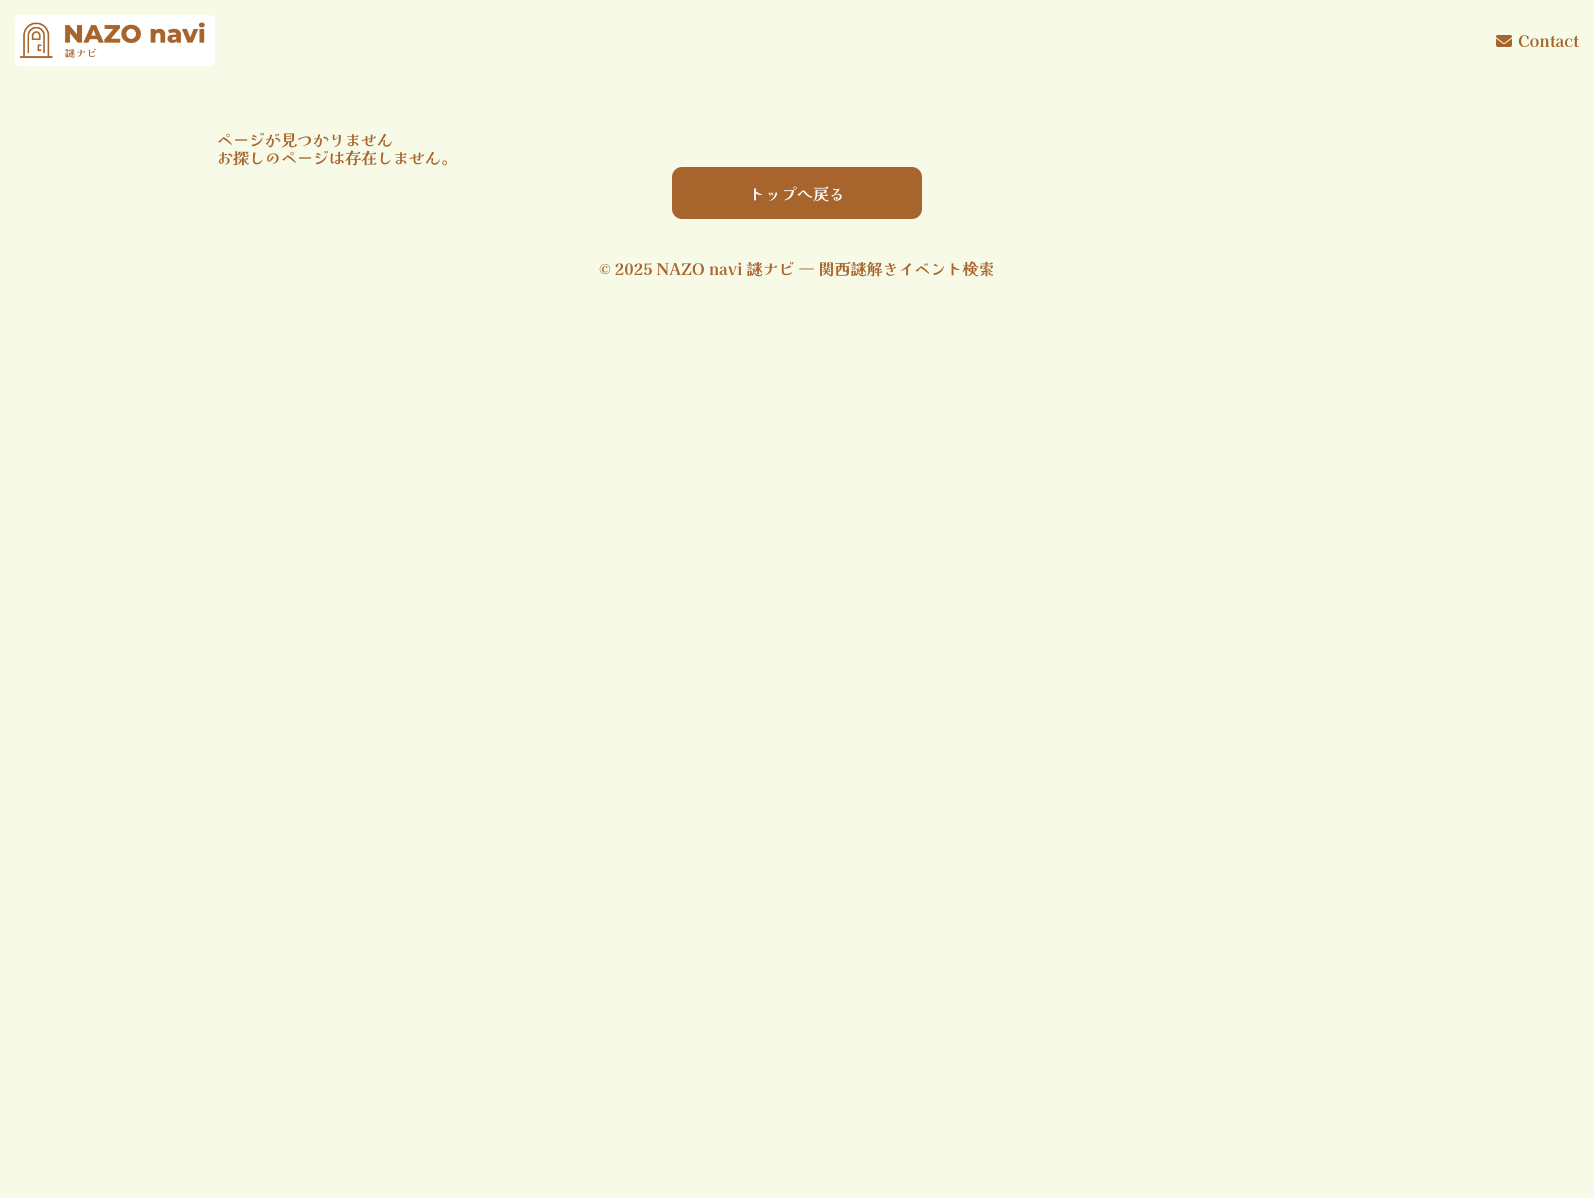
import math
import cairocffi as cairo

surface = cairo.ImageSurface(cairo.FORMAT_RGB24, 1594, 1198)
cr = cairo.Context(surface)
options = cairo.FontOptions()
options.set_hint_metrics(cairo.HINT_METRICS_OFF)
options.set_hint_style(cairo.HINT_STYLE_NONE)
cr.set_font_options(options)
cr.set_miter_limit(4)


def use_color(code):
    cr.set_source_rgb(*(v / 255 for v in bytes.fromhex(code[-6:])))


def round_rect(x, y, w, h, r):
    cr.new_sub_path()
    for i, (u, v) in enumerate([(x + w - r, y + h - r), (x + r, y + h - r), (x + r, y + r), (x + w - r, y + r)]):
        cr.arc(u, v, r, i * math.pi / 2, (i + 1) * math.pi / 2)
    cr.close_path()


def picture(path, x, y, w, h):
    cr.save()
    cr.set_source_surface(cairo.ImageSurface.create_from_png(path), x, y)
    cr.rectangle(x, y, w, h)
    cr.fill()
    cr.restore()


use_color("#f7fae7")
cr.paint()
picture("img1.png", 15, 15, 200, 51)
picture("img2.png", 1496, 35, 16, 12)
cr.select_font_face("Kaisei Opti", cairo.FONT_SLANT_NORMAL, cairo.FONT_WEIGHT_BOLD)
cr.set_font_size(16)
use_color("#a7642c")
cr.move_to(1518, 47)
cr.show_text("Contact")
cr.move_to(217, 146)
cr.show_text("ページが見つかりません")
cr.move_to(217, 164)
cr.show_text("お探しのページは存在しません。")
round_rect(672, 167, 250, 52, 10)
cr.fill()
use_color("#ffffff")
cr.move_to(749, 200)
cr.show_text("トップへ戻る")
use_color("#a7642c")
cr.move_to(599, 275)
cr.show_text("© 2025 NAZO navi 謎ナビ ― 関西謎解きイベント検索")
surface.write_to_png("result.png")
